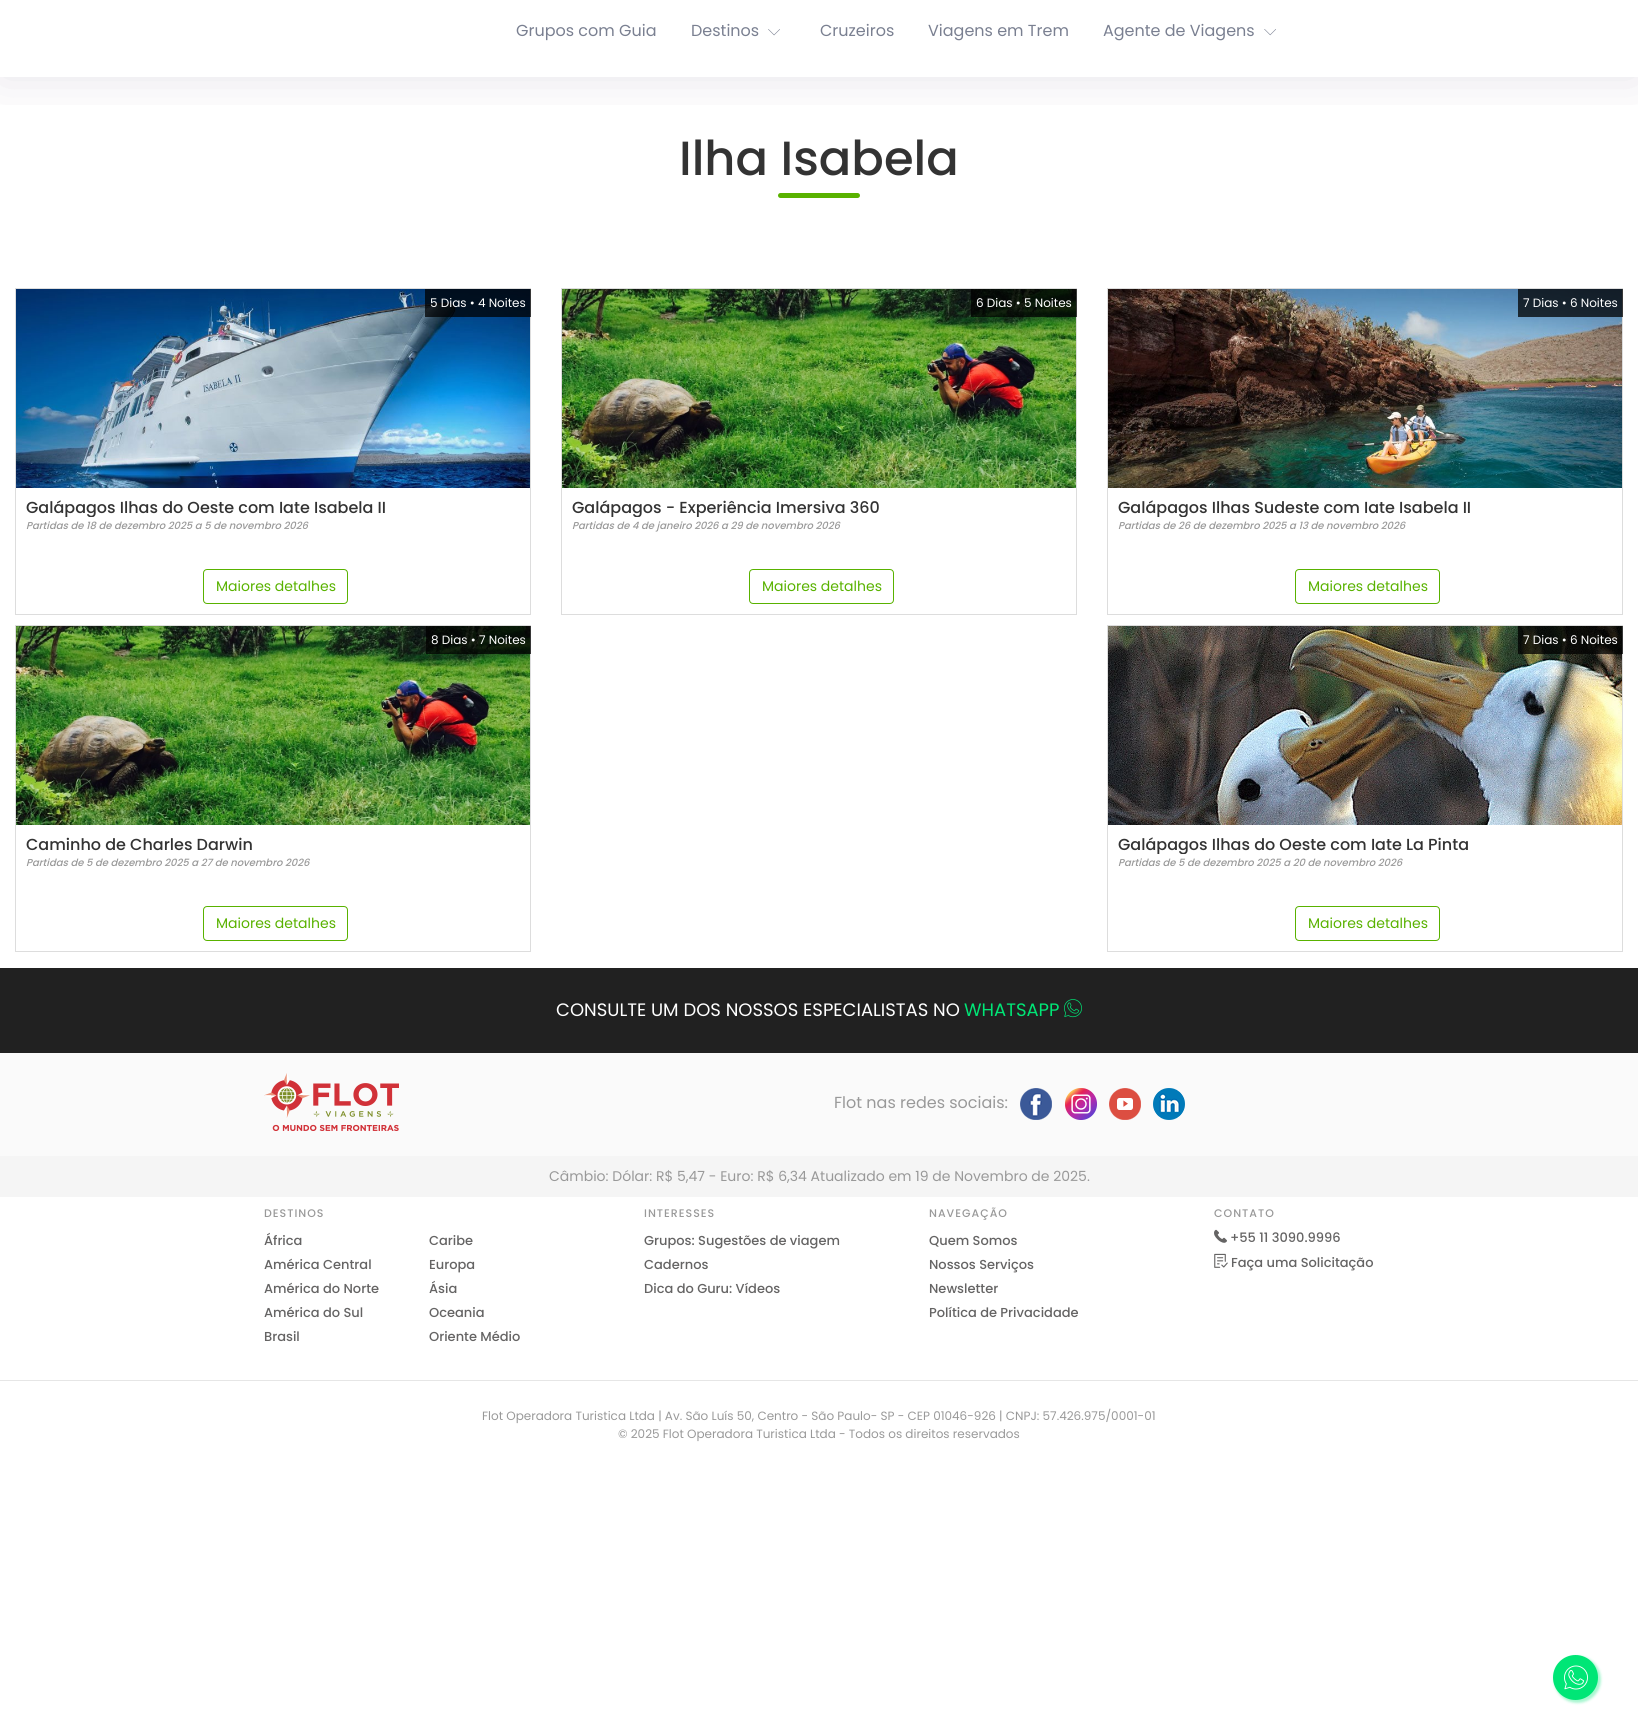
import math
import cairocffi as cairo

surface = cairo.ImageSurface(cairo.FORMAT_RGB24, 1638, 1730)
cr = cairo.Context(surface)
options = cairo.FontOptions()
options.set_hint_metrics(cairo.HINT_METRICS_OFF)
options.set_hint_style(cairo.HINT_STYLE_NONE)
cr.set_font_options(options)
cr.set_miter_limit(4)


def use_color(code):
    cr.set_source_rgb(*(v / 255 for v in bytes.fromhex(code[-6:])))


def spaced_text(x, y, s, letter, word):
    cr.move_to(x, y)
    for ch in s:
        cr.show_text(ch)
        cr.rel_move_to(letter + word * (ch == ' '), 0)


def round_rect(x, y, w, h, r):
    cr.new_sub_path()
    for i, (u, v) in enumerate([(x + w - r, y + h - r), (x + r, y + h - r), (x + r, y + r), (x + w - r, y + r)]):
        cr.arc(u, v, r, i * math.pi / 2, (i + 1) * math.pi / 2)
    cr.close_path()


def shadow(x, y, w, h, r, blur, alpha):
    cr.push_group_with_content(cairo.CONTENT_ALPHA)
    cr.set_operator(cairo.OPERATOR_SOURCE)
    for i in range(15, -16, -2):
        e = blur * i / 6
        if min(w, h) + 2 * e > 0:
            cr.set_source_rgba(0, 0, 0, alpha * math.erfc((i - 1) / 8.5) / 2)
            round_rect(x - e, y - e, w + 2 * e, h + 2 * e, max(0, min(r + e + blur * .6, min(w, h) / 2 + e)))
            cr.fill()
    cr.mask(cr.pop_group())


def picture(path, x, y, w, h):
    cr.save()
    cr.set_source_surface(cairo.ImageSurface.create_from_png(path), x, y)
    cr.rectangle(x, y, w, h)
    cr.fill()
    cr.restore()


use_color("#ffffff")
cr.paint()
cr.save()
cr.rectangle(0, 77, 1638, 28)
cr.clip()
use_color("#523f69")
shadow(0, 0, 1638, 77, 0, 25, 0.15)
cr.restore()
cr.select_font_face("Poppins")
cr.set_font_size(16)
use_color("#7a8091")
cr.move_to(516, 36)
cr.show_text("Grupos com Guia")
cr.move_to(691, 36)
cr.show_text("Destinos")
picture("img1.png", 768, 29, 12, 7)
cr.move_to(820, 36)
cr.show_text("Cruzeiros")
cr.move_to(928, 36)
cr.show_text("Viagens em Trem")
cr.move_to(1103, 36)
cr.show_text("Agente de Viagens")
picture("img2.png", 1264, 29, 12, 7)
cr.select_font_face("Poppins Medium")
cr.set_font_size(48)
use_color("#333333")
cr.move_to(679, 175)
cr.show_text("Ilha Isabela")
use_color("#59b200")
round_rect(778, 193, 82, 5, 2.5)
cr.fill()
picture("img3.png", 16, 289, 514, 199)
use_color("#dddddd")
cr.rectangle(15, 288, 516, 1)
cr.fill()
cr.rectangle(530, 288, 1, 327)
cr.fill()
cr.rectangle(15, 288, 1, 200)
cr.fill()
cr.set_source_rgba(0, 0, 0, 0.75)
cr.rectangle(425, 289, 106, 28)
cr.fill()
cr.select_font_face("Poppins")
cr.set_font_size(12)
use_color("#ffffff")
cr.move_to(430, 307)
cr.show_text("5 Dias • 4 Noites")
use_color("#dddddd")
cr.rectangle(15, 614, 516, 1)
cr.fill()
cr.rectangle(15, 488, 1, 127)
cr.fill()
cr.save()
cr.rectangle(26, 498, 499, 19)
cr.clip()
cr.select_font_face("Poppins Medium")
cr.set_font_size(16)
use_color("#333333")
cr.move_to(26, 513)
cr.show_text("Galápagos Ilhas do Oeste com Iate Isabela II")
cr.restore()
cr.select_font_face("Poppins Medium", cairo.FONT_SLANT_ITALIC)
cr.set_font_size(10)
use_color("#999999")
cr.move_to(26, 529)
cr.show_text("Partidas de 18 de dezembro 2025 a 5 de novembro 2026")
round_rect(203.5, 569.5, 144, 34, 3.5)
use_color("#59b200")
cr.set_line_width(1)
cr.stroke()
cr.select_font_face("Poppins")
cr.set_font_size(14)
cr.move_to(216, 591)
cr.show_text("Maiores detalhes")
picture("img4.png", 562, 289, 514, 199)
use_color("#dddddd")
cr.rectangle(561, 288, 516, 1)
cr.fill()
cr.rectangle(1076, 288, 1, 327)
cr.fill()
cr.rectangle(561, 288, 1, 200)
cr.fill()
cr.set_source_rgba(0, 0, 0, 0.75)
cr.rectangle(971, 289, 106, 28)
cr.fill()
cr.set_font_size(12)
use_color("#ffffff")
cr.move_to(976, 307)
cr.show_text("6 Dias • 5 Noites")
use_color("#dddddd")
cr.rectangle(561, 614, 516, 1)
cr.fill()
cr.rectangle(561, 488, 1, 127)
cr.fill()
cr.save()
cr.rectangle(572, 498, 499, 19)
cr.clip()
cr.select_font_face("Poppins Medium")
cr.set_font_size(16)
use_color("#333333")
cr.move_to(572, 513)
cr.show_text("Galápagos - Experiência Imersiva 360")
cr.restore()
cr.select_font_face("Poppins Medium", cairo.FONT_SLANT_ITALIC)
cr.set_font_size(10)
use_color("#999999")
cr.move_to(572, 529)
cr.show_text("Partidas de 4 de janeiro 2026 a 29 de novembro 2026")
round_rect(749.5, 569.5, 144, 34, 3.5)
use_color("#59b200")
cr.stroke()
cr.select_font_face("Poppins")
cr.set_font_size(14)
cr.move_to(762, 591)
cr.show_text("Maiores detalhes")
picture("img5.png", 1108, 289, 514, 199)
use_color("#dddddd")
cr.rectangle(1107, 288, 516, 1)
cr.fill()
cr.rectangle(1622, 288, 1, 327)
cr.fill()
cr.rectangle(1107, 288, 1, 200)
cr.fill()
cr.set_source_rgba(0, 0, 0, 0.75)
cr.rectangle(1518, 289, 105, 28)
cr.fill()
cr.set_font_size(12)
use_color("#ffffff")
cr.move_to(1523, 307)
cr.show_text("7 Dias • 6 Noites")
use_color("#dddddd")
cr.rectangle(1107, 614, 516, 1)
cr.fill()
cr.rectangle(1107, 488, 1, 127)
cr.fill()
cr.save()
cr.rectangle(1118, 498, 499, 19)
cr.clip()
cr.select_font_face("Poppins Medium")
cr.set_font_size(16)
use_color("#333333")
cr.move_to(1118, 513)
cr.show_text("Galápagos Ilhas Sudeste com Iate Isabela II")
cr.restore()
cr.select_font_face("Poppins Medium", cairo.FONT_SLANT_ITALIC)
cr.set_font_size(10)
use_color("#999999")
cr.move_to(1118, 529)
cr.show_text("Partidas de 26 de dezembro 2025 a 13 de novembro 2026")
round_rect(1295.5, 569.5, 144, 34, 3.5)
use_color("#59b200")
cr.stroke()
cr.select_font_face("Poppins")
cr.set_font_size(14)
cr.move_to(1308, 591)
cr.show_text("Maiores detalhes")
picture("img4.png", 16, 626, 514, 199)
use_color("#dddddd")
cr.rectangle(15, 625, 516, 1)
cr.fill()
cr.rectangle(530, 625, 1, 327)
cr.fill()
cr.rectangle(15, 625, 1, 200)
cr.fill()
cr.set_source_rgba(0, 0, 0, 0.75)
cr.rectangle(426, 626, 105, 28)
cr.fill()
cr.set_font_size(12)
use_color("#ffffff")
cr.move_to(431, 644)
cr.show_text("8 Dias • 7 Noites")
use_color("#dddddd")
cr.rectangle(15, 951, 516, 1)
cr.fill()
cr.rectangle(15, 825, 1, 127)
cr.fill()
cr.select_font_face("Poppins Medium")
cr.set_font_size(16)
use_color("#333333")
cr.move_to(26, 850)
cr.show_text("Caminho de Charles Darwin")
cr.select_font_face("Poppins Medium", cairo.FONT_SLANT_ITALIC)
cr.set_font_size(10)
use_color("#999999")
cr.move_to(26, 866)
cr.show_text("Partidas de 5 de dezembro 2025 a 27 de novembro 2026")
round_rect(203.5, 906.5, 144, 34, 3.5)
use_color("#59b200")
cr.stroke()
cr.select_font_face("Poppins")
cr.set_font_size(14)
cr.move_to(216, 928)
cr.show_text("Maiores detalhes")
picture("img6.png", 1108, 626, 514, 199)
use_color("#dddddd")
cr.rectangle(1107, 625, 516, 1)
cr.fill()
cr.rectangle(1622, 625, 1, 327)
cr.fill()
cr.rectangle(1107, 625, 1, 200)
cr.fill()
cr.set_source_rgba(0, 0, 0, 0.75)
cr.rectangle(1518, 626, 105, 28)
cr.fill()
cr.set_font_size(12)
use_color("#ffffff")
cr.move_to(1523, 644)
cr.show_text("7 Dias • 6 Noites")
use_color("#dddddd")
cr.rectangle(1107, 951, 516, 1)
cr.fill()
cr.rectangle(1107, 825, 1, 127)
cr.fill()
cr.save()
cr.rectangle(1118, 835, 499, 19)
cr.clip()
cr.select_font_face("Poppins Medium")
cr.set_font_size(16)
use_color("#333333")
cr.move_to(1118, 850)
cr.show_text("Galápagos Ilhas do Oeste com Iate La Pinta")
cr.restore()
cr.select_font_face("Poppins Medium", cairo.FONT_SLANT_ITALIC)
cr.set_font_size(10)
use_color("#999999")
cr.move_to(1118, 866)
cr.show_text("Partidas de 5 de dezembro 2025 a 20 de novembro 2026")
round_rect(1295.5, 906.5, 144, 34, 3.5)
use_color("#59b200")
cr.stroke()
cr.select_font_face("Poppins")
cr.set_font_size(14)
cr.move_to(1308, 928)
cr.show_text("Maiores detalhes")
use_color("#212121")
cr.rectangle(0, 968, 1638, 85)
cr.fill()
cr.set_font_size(18)
use_color("#ffffff")
cr.move_to(556, 1016)
cr.show_text("CONSULTE UM DOS NOSSOS ESPECIALISTAS NO")
use_color("#00e676")
cr.move_to(964, 1016)
cr.show_text("WHATSAPP")
picture("img7.png", 1064, 999, 18, 19)
use_color("#fafafa")
cr.rectangle(0, 1053, 1638, 103)
cr.fill()
picture("img8.png", 264, 1073, 135, 58)
cr.set_font_size(16)
use_color("#999999")
cr.move_to(834, 1108)
cr.show_text("Flot nas redes sociais:")
picture("img9.png", 1020, 1088, 32, 32)
picture("img10.png", 1065, 1088, 32, 32)
picture("img11.png", 1109, 1088, 32, 32)
picture("img12.png", 1153, 1088, 32, 32)
use_color("#f5f5f5")
cr.rectangle(0, 1156, 1638, 41)
cr.fill()
cr.set_font_size(14)
use_color("#999999")
cr.move_to(549, 1181)
cr.show_text("Câmbio: Dólar: R$ 5,47 - Euro: R$ 6,34 Atualizado em 19 de Novembro de 2025.")
cr.select_font_face("Poppins Medium")
cr.set_font_size(11)
spaced_text(264, 1217, "DESTINOS", 1, 0)
cr.set_font_size(13)
use_color("#656464")
cr.move_to(264, 1245)
cr.show_text("África")
cr.move_to(264, 1269)
cr.show_text("América Central")
cr.move_to(264, 1293)
cr.show_text("América do Norte")
cr.move_to(264, 1317)
cr.show_text("América do Sul")
cr.move_to(264, 1341)
cr.show_text("Brasil")
cr.move_to(429, 1245)
cr.show_text("Caribe")
cr.move_to(429, 1269)
cr.show_text("Europa")
cr.move_to(429, 1293)
cr.show_text("Ásia")
cr.move_to(429, 1317)
cr.show_text("Oceania")
cr.move_to(429, 1341)
cr.show_text("Oriente Médio")
cr.set_font_size(11)
use_color("#999999")
spaced_text(644, 1217, "INTERESSES", 1, 0)
cr.set_font_size(13)
use_color("#656464")
cr.move_to(644, 1245)
cr.show_text("Grupos: Sugestões de viagem")
cr.move_to(644, 1269)
cr.show_text("Cadernos")
cr.move_to(644, 1293)
cr.show_text("Dica do Guru: Vídeos")
cr.set_font_size(11)
use_color("#999999")
spaced_text(929, 1217, "NAVEGAÇÃO", 1, 0)
cr.set_font_size(13)
use_color("#656464")
cr.move_to(929, 1245)
cr.show_text("Quem Somos")
cr.move_to(929, 1269)
cr.show_text("Nossos Serviços")
cr.move_to(929, 1293)
cr.show_text("Newsletter")
cr.move_to(929, 1317)
cr.show_text("Política de Privacidade")
cr.set_font_size(11)
use_color("#999999")
spaced_text(1214, 1217, "CONTATO", 1, 0)
picture("img13.png", 1214, 1229, 13, 14)
cr.set_font_size(13)
use_color("#656464")
cr.move_to(1230, 1242)
cr.show_text("+55 11 3090.9996")
picture("img14.png", 1214, 1253, 14, 15)
cr.move_to(1231, 1267)
cr.show_text("Faça uma Solicitação")
use_color("#e6e6e6")
cr.rectangle(0, 1380, 1638, 1)
cr.fill()
cr.select_font_face("Poppins")
cr.set_font_size(12)
use_color("#999999")
cr.move_to(482, 1420)
cr.show_text("Flot Operadora Turistica Ltda | Av. São Luís 50, Centro - São Paulo- SP - CEP 01046-926 | CNPJ: 57.426.975/0001-01")
cr.move_to(618, 1438)
cr.show_text("© 2025 Flot Operadora Turistica Ltda - Todos os direitos reservados")
use_color("#a8f6d0")
shadow(1555, 1657, 45, 45, 22.5, 1.5, 1)
shadow(1555, 1657, 45, 45, 22.5, 1.5, 1)
use_color("#00e676")
cr.arc(1575.5, 1677.5, 22.5, 0, 2 * math.pi)
cr.fill()
picture("img15.png", 1564, 1665, 24, 25)
surface.write_to_png("result.png")
